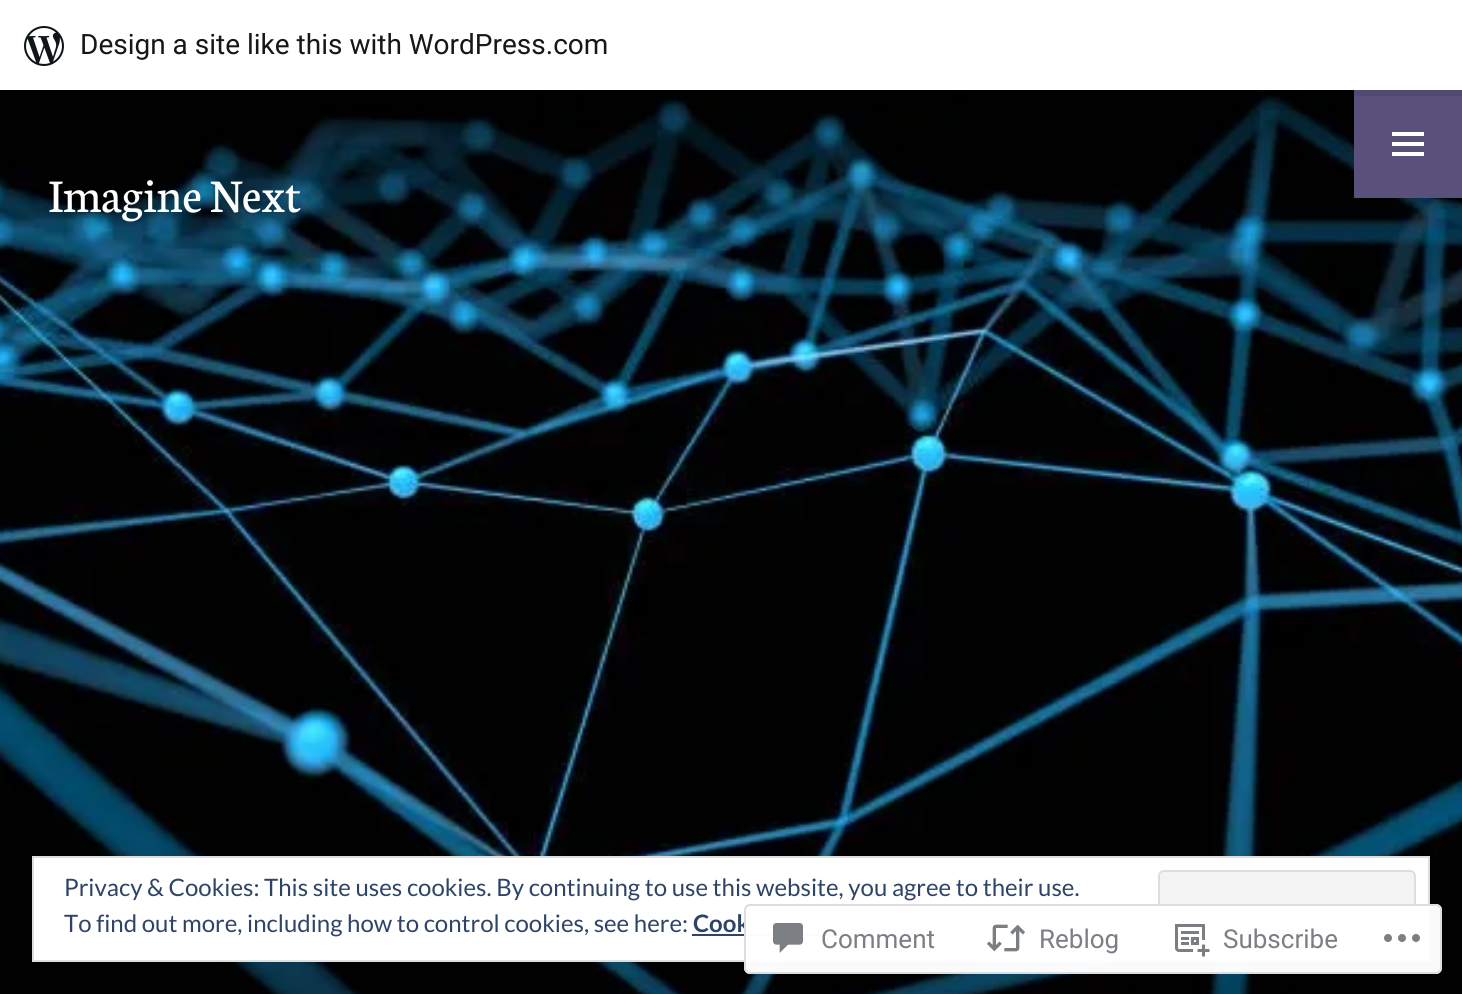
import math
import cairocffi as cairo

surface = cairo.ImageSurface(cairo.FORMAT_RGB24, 1462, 994)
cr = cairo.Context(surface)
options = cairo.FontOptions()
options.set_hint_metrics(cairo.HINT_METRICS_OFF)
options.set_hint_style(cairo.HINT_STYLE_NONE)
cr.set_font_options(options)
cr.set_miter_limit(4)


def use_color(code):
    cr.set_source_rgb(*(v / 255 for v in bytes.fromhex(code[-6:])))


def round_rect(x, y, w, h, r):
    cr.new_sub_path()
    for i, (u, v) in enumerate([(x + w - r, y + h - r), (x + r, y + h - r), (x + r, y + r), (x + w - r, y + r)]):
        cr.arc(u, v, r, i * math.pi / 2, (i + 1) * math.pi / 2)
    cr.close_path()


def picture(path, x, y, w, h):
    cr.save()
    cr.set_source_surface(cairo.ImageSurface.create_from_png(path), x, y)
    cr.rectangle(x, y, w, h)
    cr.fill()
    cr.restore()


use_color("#ffffff")
cr.paint()
picture("img2.png", 0, 90, 1462, 904)
use_color("#59507b")
cr.rectangle(1354, 90, 108, 108)
cr.fill()
cr.set_source_rgba(0, 0, 0, 0.08)
cr.new_path()
cr.move_to(2, 90)
cr.line_to(2, 96)
cr.line_to(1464, 96)
cr.line_to(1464, 6)
cr.line_to(1462, 6)
cr.line_to(1462, 90)
cr.close_path()
cr.fill()
picture("img1.png", 24, 26, 40, 40)
cr.select_font_face("Roboto")
cr.set_font_size(28)
use_color("#171717")
cr.move_to(80, 54)
cr.show_text("Design a site like this with WordPress.com")
cr.select_font_face("Neuton")
cr.set_font_size(50)
use_color("#ffffff")
cr.move_to(48, 212)
cr.show_text("Imagine Next")
picture("img3.png", 1392, 132, 32, 24)
cr.rectangle(33, 857, 1396, 104)
cr.fill_preserve()
use_color("#dedede")
cr.stroke()
cr.select_font_face("Lato")
cr.set_font_size(24)
use_color("#2e4467")
cr.move_to(64, 896)
cr.show_text("Privacy & Cookies: This site uses cookies. By continuing to use this website, you agree to their use.")
use_color("#f3f3f3")
round_rect(1159, 871, 256, 76, 5)
cr.fill_preserve()
use_color("#dedede")
cr.stroke()
use_color("#2e4467")
cr.move_to(64, 932)
cr.show_text("To find out more, including how to control cookies, see here:")
cr.select_font_face("Lato", cairo.FONT_SLANT_NORMAL, cairo.FONT_WEIGHT_BOLD)
cr.move_to(693, 932)
cr.show_text("Cook")
cr.rectangle(692, 934, 148, 2)
cr.fill()
cr.set_source_rgba(1, 1, 1, 0.98)
round_rect(744, 904, 698, 70, 6)
cr.fill()
round_rect(745, 905, 696, 68, 5)
cr.set_source_rgba(0.863, 0.863, 0.871, 0.98)
cr.stroke()
picture("img4.png", 773, 923, 30, 30)
cr.select_font_face("Roboto")
cr.set_font_size(26)
use_color("#7b7f84")
cr.move_to(821, 948)
cr.show_text("Comment")
picture("img5.png", 986, 924, 40, 28)
cr.move_to(1039, 948)
cr.show_text("Reblog")
picture("img6.png", 1175, 924, 35, 33)
cr.move_to(1223, 948)
cr.show_text("Subscribe")
picture("img7.png", 1384, 934, 36, 8)
surface.write_to_png("result.png")
